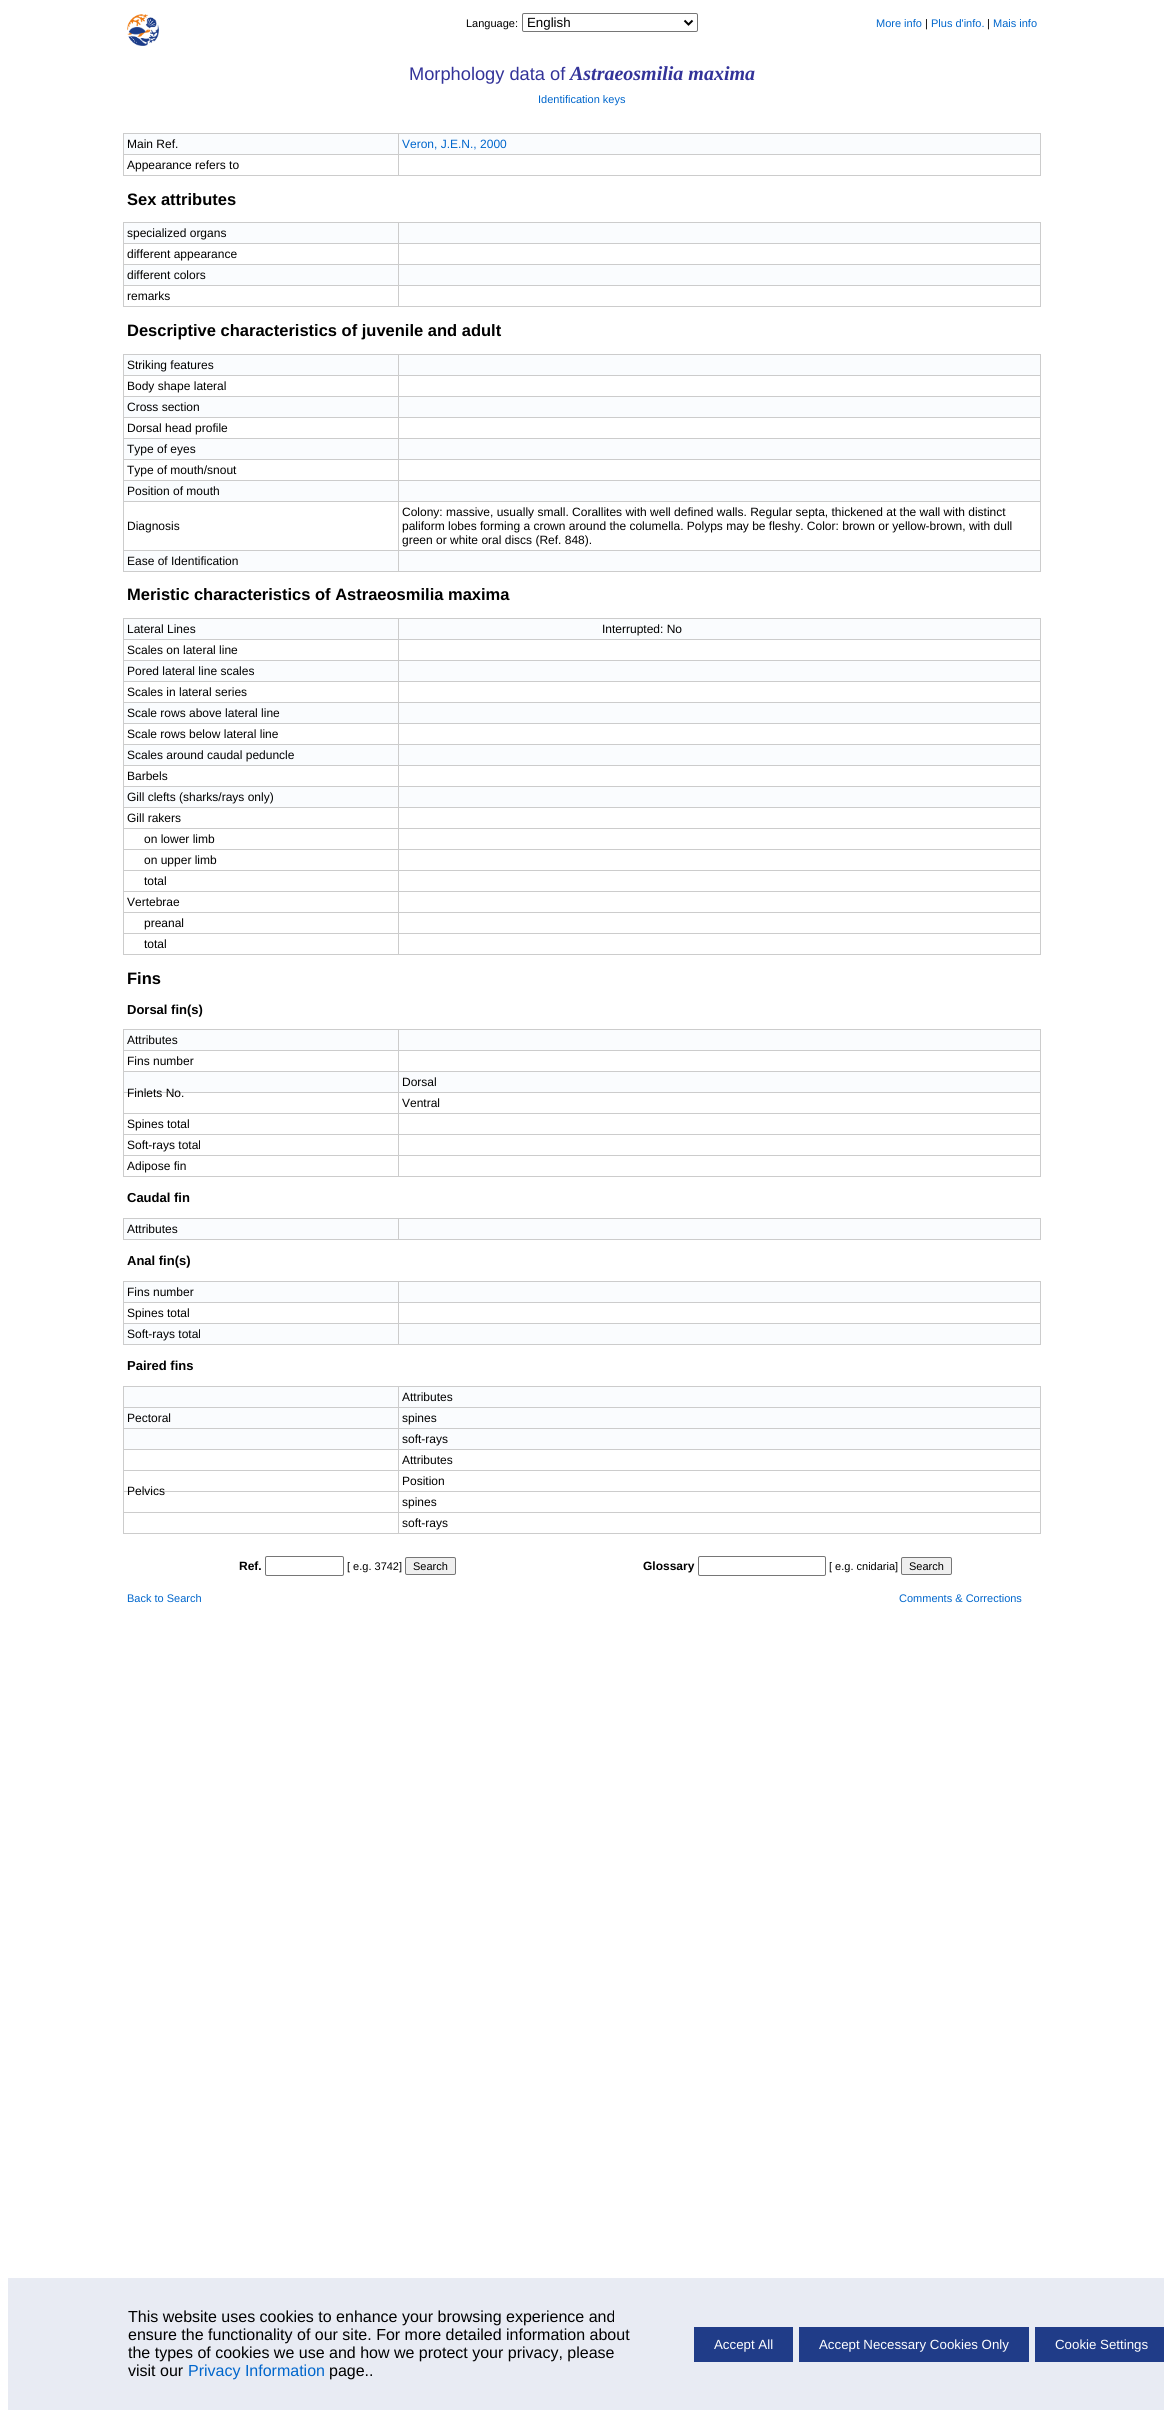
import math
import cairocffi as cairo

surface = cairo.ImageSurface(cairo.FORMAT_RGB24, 1164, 2410)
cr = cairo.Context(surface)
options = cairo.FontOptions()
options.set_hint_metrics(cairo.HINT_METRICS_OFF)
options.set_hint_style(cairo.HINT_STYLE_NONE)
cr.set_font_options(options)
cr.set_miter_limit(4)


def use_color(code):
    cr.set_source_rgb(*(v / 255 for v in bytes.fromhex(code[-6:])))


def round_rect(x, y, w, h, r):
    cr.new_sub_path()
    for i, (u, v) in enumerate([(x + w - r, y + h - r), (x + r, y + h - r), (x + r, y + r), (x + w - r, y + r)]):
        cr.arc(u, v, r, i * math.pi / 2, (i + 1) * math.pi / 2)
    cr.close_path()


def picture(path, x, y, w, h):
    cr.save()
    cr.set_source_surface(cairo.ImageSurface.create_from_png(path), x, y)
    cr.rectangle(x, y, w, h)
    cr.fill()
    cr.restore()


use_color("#ffffff")
cr.paint()
picture("img1.png", 127, 14, 32, 32)
cr.select_font_face("Liberation Sans")
cr.set_font_size(11)
use_color("#000000")
cr.move_to(466, 27)
cr.show_text("Language:")
round_rect(522.5, 13.5, 175, 18, 1.5)
use_color("#767676")
cr.set_line_width(1)
cr.stroke()
cr.new_path()
cr.move_to(684.5, 20.5)
cr.line_to(688.5, 24.5)
cr.line_to(692.5, 20.5)
use_color("#000000")
cr.set_line_width(2)
cr.stroke()
cr.set_font_size(13.3)
cr.move_to(527, 27)
cr.show_text("English")
cr.set_font_size(11)
use_color("#0066cc")
cr.move_to(876, 27)
cr.show_text("More info")
use_color("#000000")
cr.move_to(925, 27)
cr.show_text("|")
use_color("#0066cc")
cr.move_to(931, 27)
cr.show_text("Plus d'info.")
use_color("#000000")
cr.move_to(987, 27)
cr.show_text("|")
use_color("#0066cc")
cr.move_to(993, 27)
cr.show_text("Mais info")
cr.set_font_size(18.25)
use_color("#333399")
cr.move_to(409, 80)
cr.show_text("Morphology data of")
cr.select_font_face("Liberation Serif", cairo.FONT_SLANT_ITALIC, cairo.FONT_WEIGHT_BOLD)
cr.set_font_size(20)
cr.move_to(570, 80)
cr.show_text("Astraeosmilia maxima")
cr.select_font_face("Liberation Sans")
cr.set_font_size(11)
use_color("#0066cc")
cr.move_to(538, 103)
cr.show_text("Identification keys")
use_color("#cccccc")
cr.rectangle(123, 133, 918, 1)
cr.fill()
cr.rectangle(1040, 133, 1, 43)
cr.fill()
cr.rectangle(123, 175, 918, 1)
cr.fill()
cr.rectangle(123, 133, 1, 43)
cr.fill()
use_color("#fafcfe")
cr.rectangle(124, 134, 916, 20)
cr.fill()
cr.set_font_size(12)
use_color("#000000")
cr.move_to(127, 148)
cr.show_text("Main Ref.")
use_color("#0066cc")
cr.move_to(402, 148)
cr.show_text("Veron, J.E.N., 2000")
use_color("#cccccc")
cr.rectangle(123, 154, 918, 1)
cr.fill()
use_color("#000000")
cr.move_to(127, 169)
cr.show_text("Appearance refers to")
use_color("#cccccc")
cr.rectangle(398, 133, 1, 43)
cr.fill()
cr.select_font_face("Liberation Sans", cairo.FONT_SLANT_NORMAL, cairo.FONT_WEIGHT_BOLD)
cr.set_font_size(16.5)
use_color("#000000")
cr.move_to(127, 205)
cr.show_text("Sex attributes")
use_color("#cccccc")
cr.rectangle(123, 222, 918, 1)
cr.fill()
cr.rectangle(1040, 222, 1, 85)
cr.fill()
cr.rectangle(123, 306, 918, 1)
cr.fill()
cr.rectangle(123, 222, 1, 85)
cr.fill()
use_color("#fafcfe")
cr.rectangle(124, 223, 916, 20)
cr.fill()
cr.select_font_face("Liberation Sans")
cr.set_font_size(12)
use_color("#000000")
cr.move_to(127, 237)
cr.show_text("specialized organs")
use_color("#cccccc")
cr.rectangle(123, 243, 918, 1)
cr.fill()
use_color("#000000")
cr.move_to(127, 258)
cr.show_text("different appearance")
use_color("#fafcfe")
cr.rectangle(124, 265, 916, 20)
cr.fill()
use_color("#cccccc")
cr.rectangle(123, 264, 918, 1)
cr.fill()
use_color("#000000")
cr.move_to(127, 279)
cr.show_text("different colors")
use_color("#cccccc")
cr.rectangle(123, 285, 918, 1)
cr.fill()
use_color("#000000")
cr.move_to(127, 300)
cr.show_text("remarks")
use_color("#cccccc")
cr.rectangle(398, 222, 1, 85)
cr.fill()
cr.select_font_face("Liberation Sans", cairo.FONT_SLANT_NORMAL, cairo.FONT_WEIGHT_BOLD)
cr.set_font_size(16.5)
use_color("#000000")
cr.move_to(127, 336)
cr.show_text("Descriptive characteristics of juvenile and adult")
use_color("#cccccc")
cr.rectangle(123, 354, 918, 1)
cr.fill()
cr.rectangle(1040, 354, 1, 218)
cr.fill()
cr.rectangle(123, 571, 918, 1)
cr.fill()
cr.rectangle(123, 354, 1, 218)
cr.fill()
use_color("#fafcfe")
cr.rectangle(124, 355, 916, 20)
cr.fill()
cr.select_font_face("Liberation Sans")
cr.set_font_size(12)
use_color("#000000")
cr.move_to(127, 369)
cr.show_text("Striking features")
use_color("#cccccc")
cr.rectangle(123, 375, 918, 1)
cr.fill()
use_color("#000000")
cr.move_to(127, 390)
cr.show_text("Body shape lateral")
use_color("#fafcfe")
cr.rectangle(124, 397, 916, 20)
cr.fill()
use_color("#cccccc")
cr.rectangle(123, 396, 918, 1)
cr.fill()
use_color("#000000")
cr.move_to(127, 411)
cr.show_text("Cross section")
use_color("#cccccc")
cr.rectangle(123, 417, 918, 1)
cr.fill()
use_color("#000000")
cr.move_to(127, 432)
cr.show_text("Dorsal head profile")
use_color("#fafcfe")
cr.rectangle(124, 439, 916, 20)
cr.fill()
use_color("#cccccc")
cr.rectangle(123, 438, 918, 1)
cr.fill()
use_color("#000000")
cr.move_to(127, 453)
cr.show_text("Type of eyes")
use_color("#cccccc")
cr.rectangle(123, 459, 918, 1)
cr.fill()
use_color("#000000")
cr.move_to(127, 474)
cr.show_text("Type of mouth/snout")
use_color("#fafcfe")
cr.rectangle(124, 481, 916, 20)
cr.fill()
use_color("#cccccc")
cr.rectangle(123, 480, 918, 1)
cr.fill()
use_color("#000000")
cr.move_to(127, 495)
cr.show_text("Position of mouth")
use_color("#cccccc")
cr.rectangle(123, 501, 918, 1)
cr.fill()
use_color("#000000")
cr.move_to(127, 530)
cr.show_text("Diagnosis")
cr.move_to(402, 516)
cr.show_text("Colony: massive, usually small. Corallites with well defined walls. Regular septa, thickened at the wall with distinct")
cr.move_to(402, 530)
cr.show_text("paliform lobes forming a crown around the columella. Polyps may be fleshy. Color: brown or yellow-brown, with dull")
cr.move_to(402, 544)
cr.show_text("green or white oral discs (Ref. 848).")
use_color("#fafcfe")
cr.rectangle(124, 551, 916, 20)
cr.fill()
use_color("#cccccc")
cr.rectangle(123, 550, 918, 1)
cr.fill()
use_color("#000000")
cr.move_to(127, 565)
cr.show_text("Ease of Identification")
use_color("#cccccc")
cr.rectangle(398, 354, 1, 218)
cr.fill()
cr.select_font_face("Liberation Sans", cairo.FONT_SLANT_NORMAL, cairo.FONT_WEIGHT_BOLD)
cr.set_font_size(16.5)
use_color("#000000")
cr.move_to(127, 600)
cr.show_text("Meristic characteristics of Astraeosmilia maxima")
use_color("#cccccc")
cr.rectangle(123, 618, 918, 1)
cr.fill()
cr.rectangle(1040, 618, 1, 337)
cr.fill()
cr.rectangle(123, 954, 918, 1)
cr.fill()
cr.rectangle(123, 618, 1, 337)
cr.fill()
use_color("#fafcfe")
cr.rectangle(124, 619, 916, 20)
cr.fill()
cr.select_font_face("Liberation Sans")
cr.set_font_size(12)
use_color("#000000")
cr.move_to(127, 633)
cr.show_text("Lateral Lines")
cr.move_to(602, 633)
cr.show_text("Interrupted: No")
use_color("#cccccc")
cr.rectangle(123, 639, 918, 1)
cr.fill()
use_color("#000000")
cr.move_to(127, 654)
cr.show_text("Scales on lateral line")
use_color("#fafcfe")
cr.rectangle(124, 661, 916, 20)
cr.fill()
use_color("#cccccc")
cr.rectangle(123, 660, 918, 1)
cr.fill()
use_color("#000000")
cr.move_to(127, 675)
cr.show_text("Pored lateral line scales")
use_color("#cccccc")
cr.rectangle(123, 681, 918, 1)
cr.fill()
use_color("#000000")
cr.move_to(127, 696)
cr.show_text("Scales in lateral series")
use_color("#fafcfe")
cr.rectangle(124, 703, 916, 20)
cr.fill()
use_color("#cccccc")
cr.rectangle(123, 702, 918, 1)
cr.fill()
use_color("#000000")
cr.move_to(127, 717)
cr.show_text("Scale rows above lateral line")
use_color("#cccccc")
cr.rectangle(123, 723, 918, 1)
cr.fill()
use_color("#000000")
cr.move_to(127, 738)
cr.show_text("Scale rows below lateral line")
use_color("#fafcfe")
cr.rectangle(124, 745, 916, 20)
cr.fill()
use_color("#cccccc")
cr.rectangle(123, 744, 918, 1)
cr.fill()
use_color("#000000")
cr.move_to(127, 759)
cr.show_text("Scales around caudal peduncle")
use_color("#cccccc")
cr.rectangle(123, 765, 918, 1)
cr.fill()
use_color("#000000")
cr.move_to(127, 780)
cr.show_text("Barbels")
use_color("#fafcfe")
cr.rectangle(124, 787, 916, 20)
cr.fill()
use_color("#cccccc")
cr.rectangle(123, 786, 918, 1)
cr.fill()
use_color("#000000")
cr.move_to(127, 801)
cr.show_text("Gill clefts (sharks/rays only)")
use_color("#cccccc")
cr.rectangle(123, 807, 918, 1)
cr.fill()
use_color("#000000")
cr.move_to(127, 822)
cr.show_text("Gill rakers")
use_color("#cccccc")
cr.rectangle(123, 828, 918, 1)
cr.fill()
use_color("#000000")
cr.move_to(144, 843)
cr.show_text("on lower limb")
use_color("#cccccc")
cr.rectangle(123, 849, 918, 1)
cr.fill()
use_color("#000000")
cr.move_to(144, 864)
cr.show_text("on upper limb")
use_color("#cccccc")
cr.rectangle(123, 870, 918, 1)
cr.fill()
use_color("#000000")
cr.move_to(144, 885)
cr.show_text("total")
use_color("#cccccc")
cr.rectangle(123, 891, 918, 1)
cr.fill()
use_color("#000000")
cr.move_to(127, 906)
cr.show_text("Vertebrae")
use_color("#cccccc")
cr.rectangle(123, 912, 918, 1)
cr.fill()
use_color("#000000")
cr.move_to(144, 927)
cr.show_text("preanal")
use_color("#cccccc")
cr.rectangle(123, 933, 918, 1)
cr.fill()
use_color("#000000")
cr.move_to(144, 948)
cr.show_text("total")
use_color("#cccccc")
cr.rectangle(398, 618, 1, 337)
cr.fill()
cr.select_font_face("Liberation Sans", cairo.FONT_SLANT_NORMAL, cairo.FONT_WEIGHT_BOLD)
cr.set_font_size(16.5)
use_color("#000000")
cr.move_to(127, 984)
cr.show_text("Fins")
cr.set_font_size(13)
cr.move_to(127, 1014)
cr.show_text("Dorsal fin(s)")
use_color("#cccccc")
cr.rectangle(123, 1029, 918, 1)
cr.fill()
cr.rectangle(1040, 1029, 1, 148)
cr.fill()
cr.rectangle(123, 1176, 918, 1)
cr.fill()
cr.rectangle(123, 1029, 1, 148)
cr.fill()
use_color("#fafcfe")
cr.rectangle(124, 1030, 916, 20)
cr.fill()
cr.select_font_face("Liberation Sans")
cr.set_font_size(12)
use_color("#000000")
cr.move_to(127, 1044)
cr.show_text("Attributes")
use_color("#cccccc")
cr.rectangle(123, 1050, 918, 1)
cr.fill()
use_color("#000000")
cr.move_to(127, 1065)
cr.show_text("Fins number")
use_color("#fafcfe")
cr.rectangle(124, 1072, 916, 20)
cr.fill()
use_color("#cccccc")
cr.rectangle(123, 1071, 918, 1)
cr.fill()
use_color("#000000")
cr.move_to(402, 1086)
cr.show_text("Dorsal")
use_color("#cccccc")
cr.rectangle(123, 1092, 918, 1)
cr.fill()
use_color("#000000")
cr.move_to(127, 1097)
cr.show_text("Finlets No.")
cr.move_to(402, 1107)
cr.show_text("Ventral")
use_color("#cccccc")
cr.rectangle(123, 1113, 918, 1)
cr.fill()
use_color("#000000")
cr.move_to(127, 1128)
cr.show_text("Spines total")
use_color("#cccccc")
cr.rectangle(123, 1134, 918, 1)
cr.fill()
use_color("#000000")
cr.move_to(127, 1149)
cr.show_text("Soft-rays total")
use_color("#cccccc")
cr.rectangle(123, 1155, 918, 1)
cr.fill()
use_color("#000000")
cr.move_to(127, 1170)
cr.show_text("Adipose fin")
use_color("#cccccc")
cr.rectangle(398, 1029, 1, 148)
cr.fill()
cr.select_font_face("Liberation Sans", cairo.FONT_SLANT_NORMAL, cairo.FONT_WEIGHT_BOLD)
cr.set_font_size(13)
use_color("#000000")
cr.move_to(127, 1202)
cr.show_text("Caudal fin")
use_color("#cccccc")
cr.rectangle(123, 1218, 918, 1)
cr.fill()
cr.rectangle(1040, 1218, 1, 22)
cr.fill()
cr.rectangle(123, 1239, 918, 1)
cr.fill()
cr.rectangle(123, 1218, 1, 22)
cr.fill()
use_color("#fafcfe")
cr.rectangle(124, 1219, 916, 20)
cr.fill()
cr.select_font_face("Liberation Sans")
cr.set_font_size(12)
use_color("#000000")
cr.move_to(127, 1233)
cr.show_text("Attributes")
use_color("#cccccc")
cr.rectangle(398, 1218, 1, 22)
cr.fill()
cr.select_font_face("Liberation Sans", cairo.FONT_SLANT_NORMAL, cairo.FONT_WEIGHT_BOLD)
cr.set_font_size(13)
use_color("#000000")
cr.move_to(127, 1265)
cr.show_text("Anal fin(s)")
use_color("#cccccc")
cr.rectangle(123, 1281, 918, 1)
cr.fill()
cr.rectangle(1040, 1281, 1, 64)
cr.fill()
cr.rectangle(123, 1344, 918, 1)
cr.fill()
cr.rectangle(123, 1281, 1, 64)
cr.fill()
use_color("#fafcfe")
cr.rectangle(124, 1282, 916, 20)
cr.fill()
cr.select_font_face("Liberation Sans")
cr.set_font_size(12)
use_color("#000000")
cr.move_to(127, 1296)
cr.show_text("Fins number")
use_color("#cccccc")
cr.rectangle(123, 1302, 918, 1)
cr.fill()
use_color("#000000")
cr.move_to(127, 1317)
cr.show_text("Spines total")
use_color("#fafcfe")
cr.rectangle(124, 1324, 916, 20)
cr.fill()
use_color("#cccccc")
cr.rectangle(123, 1323, 918, 1)
cr.fill()
use_color("#000000")
cr.move_to(127, 1338)
cr.show_text("Soft-rays total")
use_color("#cccccc")
cr.rectangle(398, 1281, 1, 64)
cr.fill()
cr.select_font_face("Liberation Sans", cairo.FONT_SLANT_NORMAL, cairo.FONT_WEIGHT_BOLD)
cr.set_font_size(13)
use_color("#000000")
cr.move_to(127, 1370)
cr.show_text("Paired fins")
use_color("#cccccc")
cr.rectangle(123, 1386, 918, 1)
cr.fill()
cr.rectangle(1040, 1386, 1, 148)
cr.fill()
cr.rectangle(123, 1533, 918, 1)
cr.fill()
cr.rectangle(123, 1386, 1, 148)
cr.fill()
use_color("#fafcfe")
cr.rectangle(124, 1387, 916, 20)
cr.fill()
cr.select_font_face("Liberation Sans")
cr.set_font_size(12)
use_color("#000000")
cr.move_to(402, 1401)
cr.show_text("Attributes")
use_color("#fafcfe")
cr.rectangle(124, 1408, 916, 20)
cr.fill()
use_color("#000000")
cr.move_to(127, 1422)
cr.show_text("Pectoral")
use_color("#cccccc")
cr.rectangle(123, 1407, 918, 1)
cr.fill()
use_color("#000000")
cr.move_to(402, 1422)
cr.show_text("spines")
use_color("#fafcfe")
cr.rectangle(124, 1429, 916, 20)
cr.fill()
use_color("#cccccc")
cr.rectangle(123, 1428, 918, 1)
cr.fill()
use_color("#000000")
cr.move_to(402, 1443)
cr.show_text("soft-rays")
use_color("#cccccc")
cr.rectangle(123, 1449, 918, 1)
cr.fill()
use_color("#000000")
cr.move_to(402, 1464)
cr.show_text("Attributes")
use_color("#cccccc")
cr.rectangle(123, 1491, 918, 1)
cr.fill()
use_color("#000000")
cr.move_to(127, 1495)
cr.show_text("Pelvics")
use_color("#cccccc")
cr.rectangle(123, 1470, 918, 1)
cr.fill()
use_color("#000000")
cr.move_to(402, 1485)
cr.show_text("Position")
cr.move_to(402, 1506)
cr.show_text("spines")
use_color("#cccccc")
cr.rectangle(123, 1512, 918, 1)
cr.fill()
cr.rectangle(398, 1386, 1, 148)
cr.fill()
use_color("#000000")
cr.move_to(402, 1527)
cr.show_text("soft-rays")
cr.select_font_face("Liberation Sans", cairo.FONT_SLANT_NORMAL, cairo.FONT_WEIGHT_BOLD)
cr.move_to(239, 1570)
cr.show_text("Ref.")
round_rect(265.5, 1556.5, 78, 19, 1.5)
use_color("#767676")
cr.set_line_width(1)
cr.stroke()
cr.select_font_face("Liberation Sans")
cr.set_font_size(11)
use_color("#000000")
cr.move_to(347, 1570)
cr.show_text("[ e.g. 3742]")
use_color("#efefef")
round_rect(405.5, 1557.5, 50, 17, 1.5)
cr.fill_preserve()
use_color("#767676")
cr.stroke()
use_color("#000000")
cr.move_to(413, 1570)
cr.show_text("Search")
cr.select_font_face("Liberation Sans", cairo.FONT_SLANT_NORMAL, cairo.FONT_WEIGHT_BOLD)
cr.set_font_size(12)
cr.move_to(643, 1570)
cr.show_text("Glossary")
round_rect(698.5, 1556.5, 127, 19, 1.5)
use_color("#767676")
cr.stroke()
cr.select_font_face("Liberation Sans")
cr.set_font_size(11)
use_color("#000000")
cr.move_to(829, 1570)
cr.show_text("[ e.g. cnidaria]")
use_color("#efefef")
round_rect(901.5, 1557.5, 50, 17, 1.5)
cr.fill_preserve()
use_color("#767676")
cr.stroke()
use_color("#000000")
cr.move_to(909, 1570)
cr.show_text("Search")
use_color("#0066cc")
cr.move_to(127, 1602)
cr.show_text("Back to Search")
cr.move_to(899, 1602)
cr.show_text("Comments & Corrections")
use_color("#e8ebf3")
cr.rectangle(8, 2278, 1156, 132)
cr.fill()
cr.set_font_size(16)
use_color("#000000")
cr.move_to(128, 2322)
cr.show_text("This website uses cookies to enhance your browsing experience and")
cr.move_to(128, 2340)
cr.show_text("ensure the functionality of our site. For more detailed information about")
cr.move_to(128, 2358)
cr.show_text("the types of cookies we use and how we protect your privacy, please")
cr.move_to(128, 2376)
cr.show_text("visit our")
use_color("#0066cc")
cr.move_to(188, 2376)
cr.show_text("Privacy Information")
use_color("#000000")
cr.move_to(329, 2376)
cr.show_text("page..")
use_color("#203c88")
cr.rectangle(694, 2327, 99, 35)
cr.fill()
cr.set_font_size(13.3)
use_color("#ffffff")
cr.move_to(714, 2349)
cr.show_text("Accept All")
use_color("#203c88")
cr.rectangle(799, 2327, 230, 35)
cr.fill()
use_color("#ffffff")
cr.move_to(819, 2349)
cr.show_text("Accept Necessary Cookies Only")
use_color("#203c88")
cr.rectangle(1035, 2327, 129, 35)
cr.fill()
use_color("#ffffff")
cr.move_to(1055, 2349)
cr.show_text("Cookie Settings")
surface.write_to_png("result.png")
